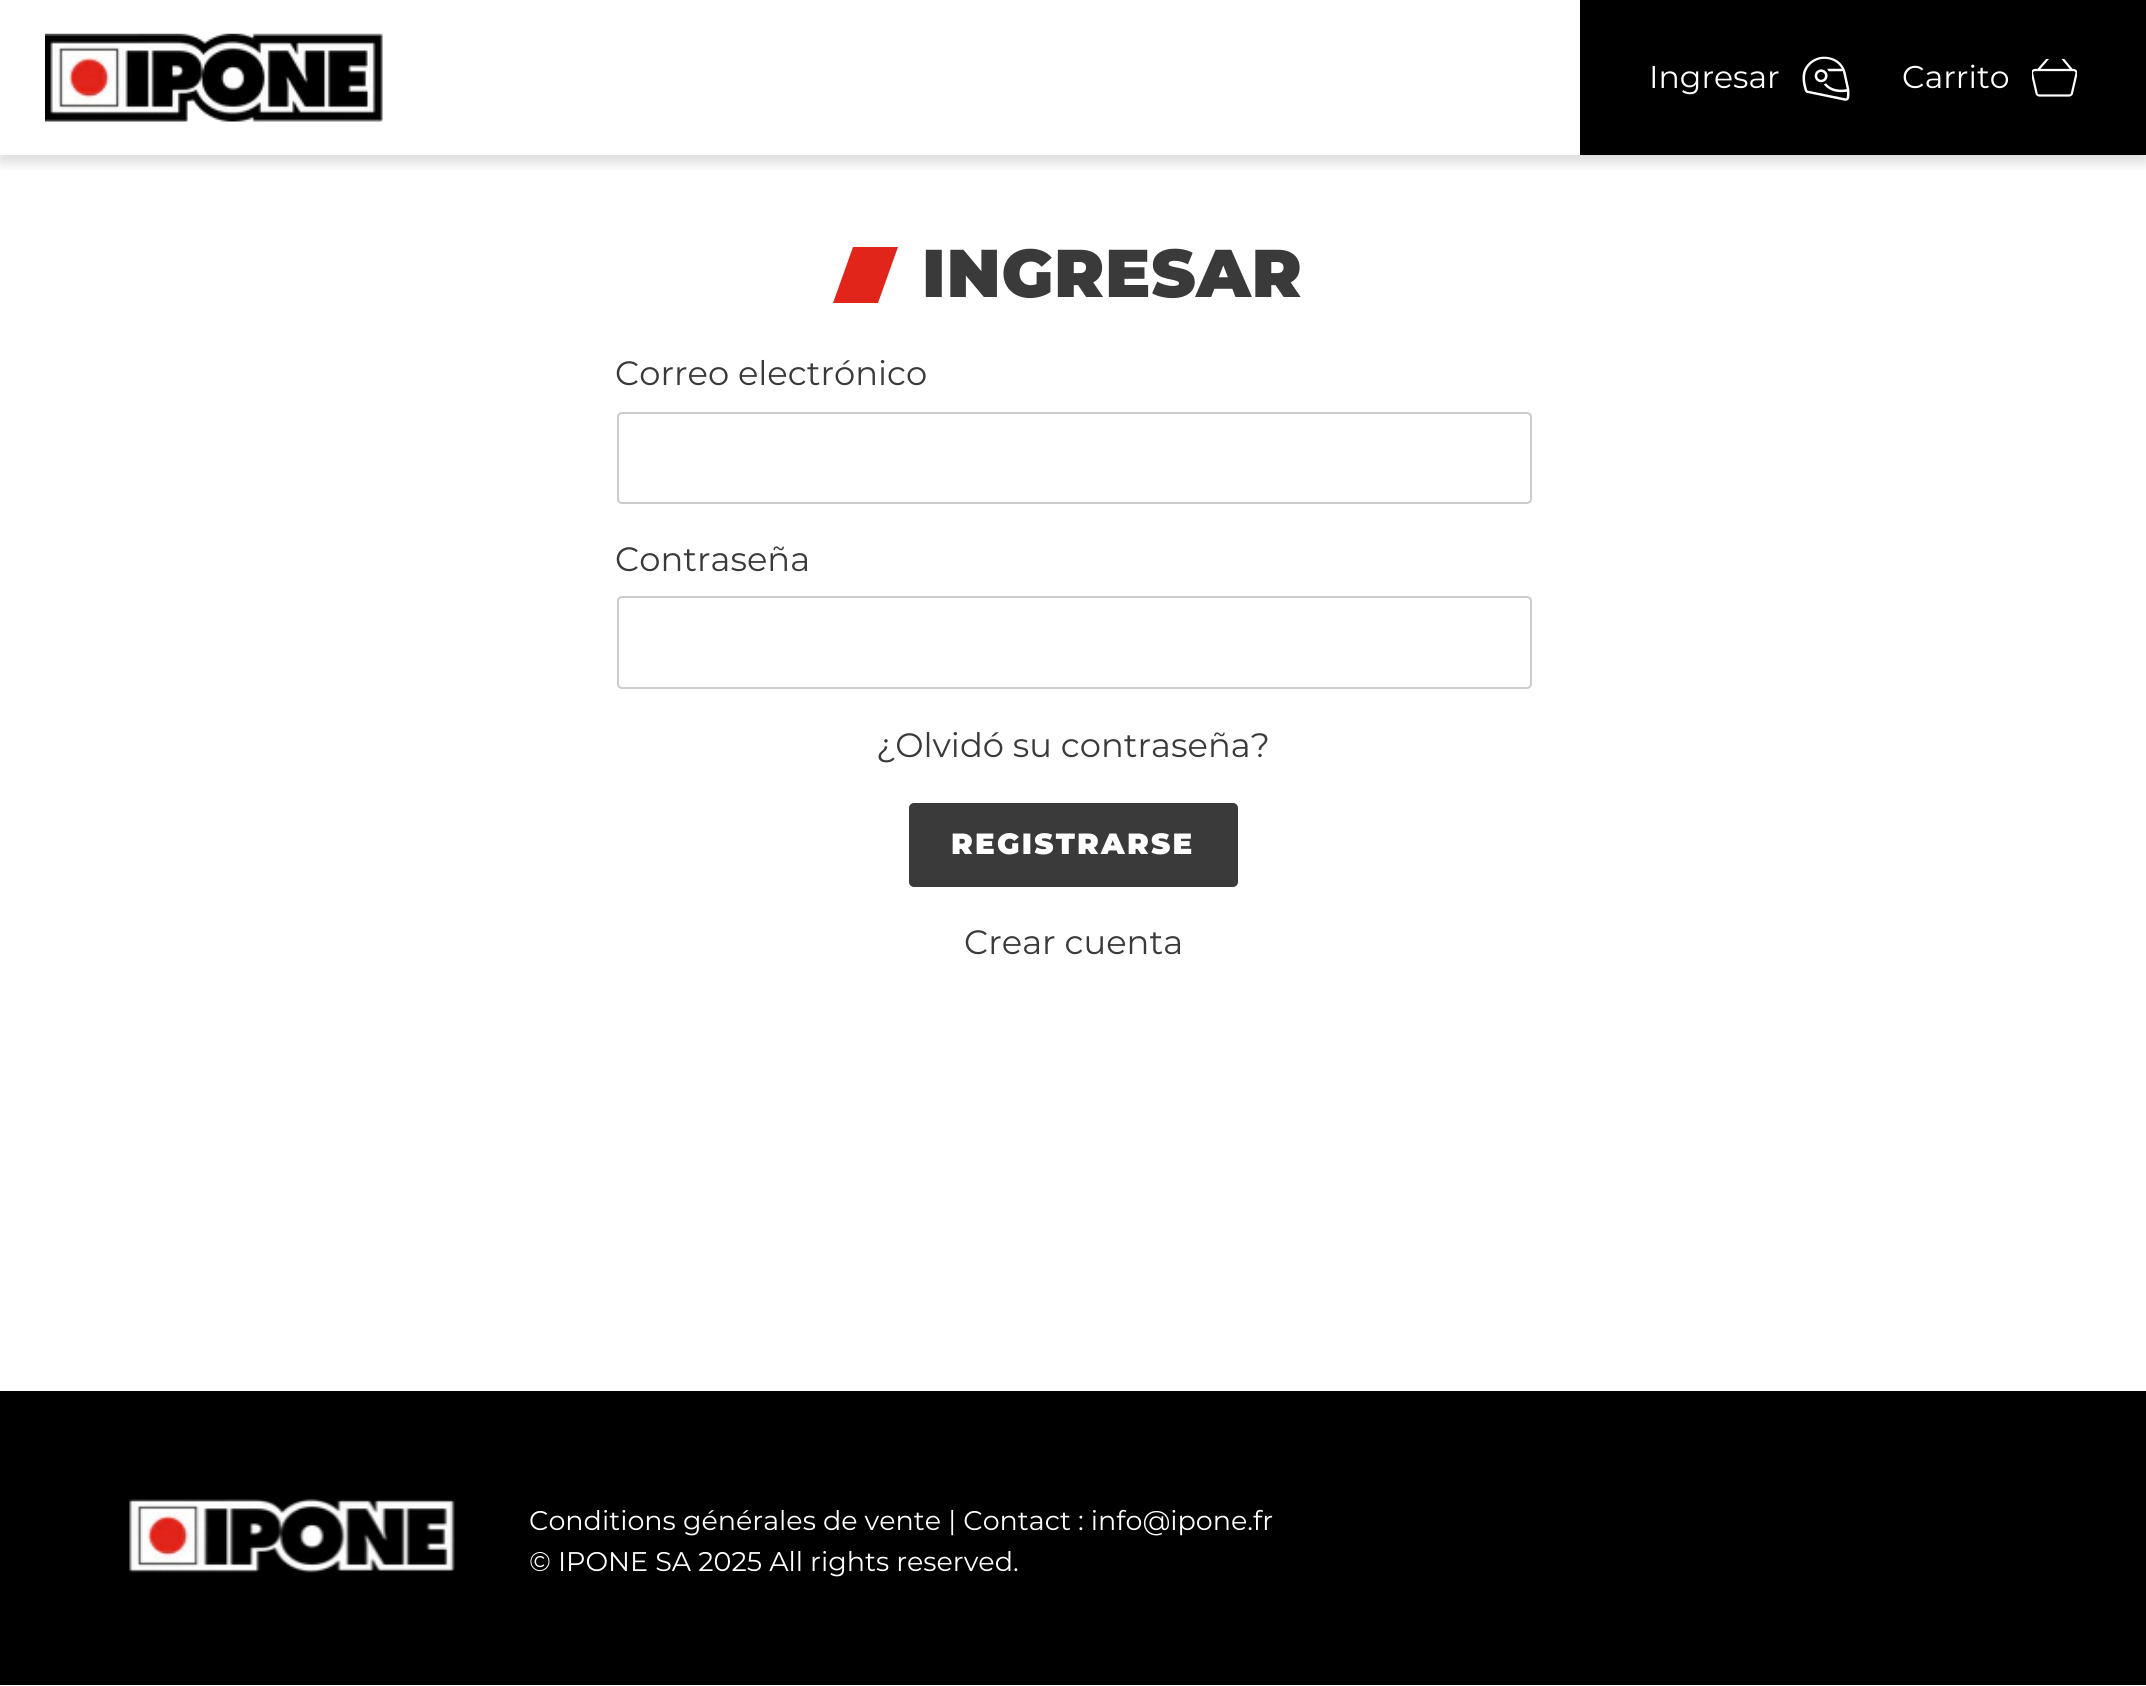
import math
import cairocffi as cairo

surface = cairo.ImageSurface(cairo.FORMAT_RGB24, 2146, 1686)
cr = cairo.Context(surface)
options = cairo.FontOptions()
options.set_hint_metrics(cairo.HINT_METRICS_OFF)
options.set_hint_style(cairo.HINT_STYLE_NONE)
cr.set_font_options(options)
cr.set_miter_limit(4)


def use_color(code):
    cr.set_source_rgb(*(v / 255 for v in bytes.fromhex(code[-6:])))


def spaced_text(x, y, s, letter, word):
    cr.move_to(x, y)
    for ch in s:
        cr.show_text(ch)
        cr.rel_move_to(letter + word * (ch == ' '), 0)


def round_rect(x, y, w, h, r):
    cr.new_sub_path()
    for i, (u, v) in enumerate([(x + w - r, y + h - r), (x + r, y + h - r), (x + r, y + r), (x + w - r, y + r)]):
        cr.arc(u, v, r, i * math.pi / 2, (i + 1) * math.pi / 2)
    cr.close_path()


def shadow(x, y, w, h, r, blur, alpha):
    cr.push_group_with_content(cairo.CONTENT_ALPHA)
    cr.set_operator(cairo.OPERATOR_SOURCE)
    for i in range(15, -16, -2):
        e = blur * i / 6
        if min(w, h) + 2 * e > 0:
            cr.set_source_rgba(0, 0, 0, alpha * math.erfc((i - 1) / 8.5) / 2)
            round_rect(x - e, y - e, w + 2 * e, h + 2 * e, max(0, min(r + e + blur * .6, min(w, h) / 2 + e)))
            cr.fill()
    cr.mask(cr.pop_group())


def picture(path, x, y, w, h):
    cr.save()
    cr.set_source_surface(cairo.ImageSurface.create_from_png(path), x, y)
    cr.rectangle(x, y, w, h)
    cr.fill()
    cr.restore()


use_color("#ffffff")
cr.paint()
cr.save()
cr.rectangle(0, 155, 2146, 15)
cr.clip()
use_color("#000000")
shadow(0, 7, 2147, 155, 0, 7, 0.15)
cr.restore()
use_color("#000000")
cr.rectangle(1580, 0, 566, 155)
cr.fill()
picture("img1.png", 45, 33, 338, 89)
cr.select_font_face("Montserrat")
cr.set_font_size(31.5)
use_color("#ffffff")
cr.move_to(1649, 88)
cr.show_text("Ingresar")
picture("img2.png", 1802, 56, 48, 45)
cr.move_to(1902, 88)
cr.show_text("Carrito")
cr.save()
cr.rectangle(2032, 59, 45, 38)
cr.clip()
cr.new_path()
cr.move_to(2069, 95.5)
cr.line_to(2039.5, 95.5)
cr.curve_to(2038, 95.5, 2036.5, 94.5, 2036.5, 93)
cr.line_to(2032, 73.5)
cr.curve_to(2031.5, 72, 2033, 70, 2035, 70)
cr.line_to(2073.5, 70)
cr.curve_to(2075.5, 70, 2077, 72, 2076.5, 73.5)
cr.line_to(2072, 93)
cr.curve_to(2072, 94.5, 2070.5, 95.5, 2069, 95.5)
cr.close_path()
cr.move_to(2038, 70)
cr.line_to(2048, 58.5)
cr.move_to(2072, 70)
cr.line_to(2062.5, 58.5)
cr.set_line_width(2.2)
cr.stroke()
cr.restore()
use_color("#e1251b")
cr.new_path()
cr.move_to(853, 247)
cr.line_to(898, 247)
cr.line_to(878, 303)
cr.line_to(833, 303)
cr.close_path()
cr.fill()
cr.select_font_face("Montserrat Black")
cr.set_font_size(67.5)
use_color("#3a3a3a")
spaced_text(922, 297, "INGRESAR", 0.75, 0)
cr.select_font_face("Montserrat")
cr.set_font_size(33.75)
cr.move_to(615, 385)
cr.show_text("Correo electrónico")
round_rect(618, 413, 913, 90, 4)
use_color("#cccccc")
cr.stroke()
use_color("#3a3a3a")
cr.move_to(615, 571)
cr.show_text("Contraseña")
round_rect(618, 597, 913, 91, 4)
use_color("#cccccc")
cr.stroke()
use_color("#3a3a3a")
cr.move_to(876, 757)
cr.show_text("¿Olvidó su contraseña?")
round_rect(909, 803, 329, 84, 5)
cr.fill()
cr.select_font_face("Montserrat Black")
cr.set_font_size(29.25)
use_color("#ffffff")
spaced_text(951, 854, "REGISTRARSE", 2.25, 0)
cr.select_font_face("Montserrat")
cr.set_font_size(33.75)
use_color("#3a3a3a")
cr.move_to(964, 954)
cr.show_text("Crear cuenta")
use_color("#000000")
cr.rectangle(0, 1391, 2146, 294)
cr.fill()
picture("img3.png", 129, 1498, 326, 75)
cr.set_font_size(27)
use_color("#ffffff")
cr.move_to(529, 1530)
cr.show_text("Conditions générales de vente | Contact : info@ipone.fr")
cr.move_to(529, 1571)
cr.show_text("© IPONE SA 2025 All rights reserved.")
surface.write_to_png("result.png")
